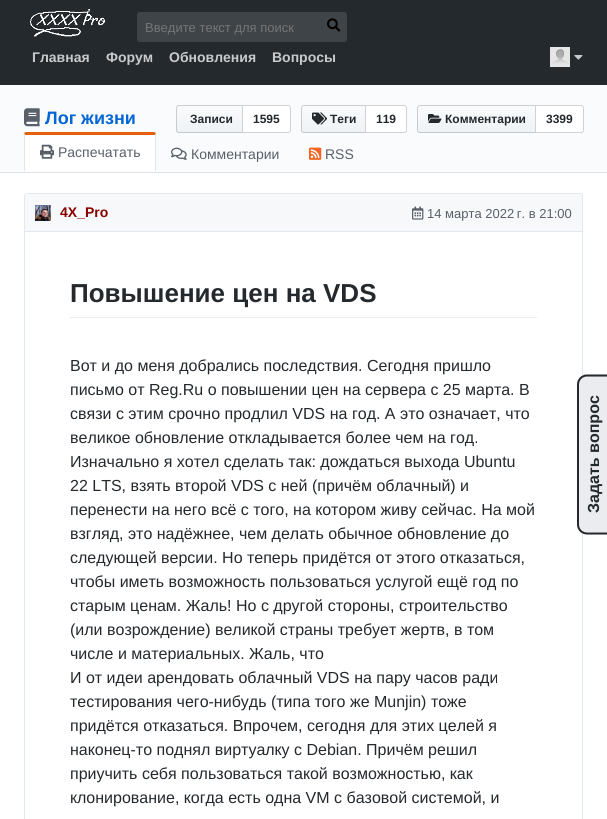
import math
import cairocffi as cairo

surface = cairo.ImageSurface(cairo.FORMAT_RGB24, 607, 819)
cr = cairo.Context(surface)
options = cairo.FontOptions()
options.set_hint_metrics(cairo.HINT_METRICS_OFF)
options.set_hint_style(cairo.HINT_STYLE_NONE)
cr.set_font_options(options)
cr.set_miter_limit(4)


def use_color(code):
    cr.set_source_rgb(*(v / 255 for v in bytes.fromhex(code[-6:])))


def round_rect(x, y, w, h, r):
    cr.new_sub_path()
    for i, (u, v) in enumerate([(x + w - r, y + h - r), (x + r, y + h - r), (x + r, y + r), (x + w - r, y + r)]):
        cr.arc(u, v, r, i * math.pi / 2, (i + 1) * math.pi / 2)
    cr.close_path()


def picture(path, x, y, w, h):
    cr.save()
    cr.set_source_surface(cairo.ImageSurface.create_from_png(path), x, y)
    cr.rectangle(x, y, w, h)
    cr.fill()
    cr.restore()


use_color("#ffffff")
cr.paint()
use_color("#24292e")
cr.rectangle(0, 0, 607, 85)
cr.fill()
picture("img1.png", 30, 9, 76, 28)
use_color("#3f4448")
round_rect(137, 12, 210, 30, 3)
cr.fill()
cr.select_font_face("Liberation Sans")
cr.set_font_size(13)
use_color("#757575")
cr.move_to(145, 32)
cr.show_text("Введите текст для поиск")
picture("img2.png", 327, 18, 14, 14)
cr.select_font_face("Liberation Sans", cairo.FONT_SLANT_NORMAL, cairo.FONT_WEIGHT_BOLD)
cr.set_font_size(14)
use_color("#c8cacb")
cr.move_to(32, 62)
cr.show_text("Главная")
cr.move_to(106, 62)
cr.show_text("Форум")
cr.move_to(169, 62)
cr.show_text("Обновления")
cr.move_to(272, 62)
cr.show_text("Вопросы")
picture("img3.png", 550, 47, 20, 20)
picture("img4.png", 574, 55, 9, 5)
use_color("#fafbfc")
cr.rectangle(0, 85, 607, 87)
cr.fill()
use_color("#e1e4e8")
cr.rectangle(0, 172, 607, 1)
cr.fill()
picture("img5.png", 24, 108, 16, 19)
cr.set_font_size(18)
use_color("#0366d6")
cr.move_to(45, 124)
cr.show_text("Лог жизни")
gradient = cairo.LinearGradient(212, 105, 212, 134)
gradient.add_color_stop_rgba(0, 0.98, 0.984, 0.988, 1)
gradient.add_color_stop_rgba(0.9, 0.937, 0.953, 0.965, 1)
cr.set_source(gradient)
cr.new_path()
cr.move_to(179, 105)
cr.line_to(244, 105)
cr.line_to(244, 133)
cr.line_to(179, 133)
cr.curve_to(177.5, 133, 176, 131.5, 176, 130)
cr.line_to(176, 108)
cr.curve_to(176, 106.5, 177.5, 105, 179, 105)
cr.close_path()
cr.fill()
cr.new_path()
cr.move_to(179, 105.5)
cr.line_to(243.5, 105.5)
cr.line_to(243.5, 132.5)
cr.line_to(179, 132.5)
cr.curve_to(177.5, 132.5, 176.5, 131.5, 176.5, 130)
cr.line_to(176.5, 108)
cr.curve_to(176.5, 106.5, 177.5, 105.5, 179, 105.5)
cr.close_path()
cr.set_source_rgba(0.106, 0.122, 0.137, 0.2)
cr.set_line_width(1)
cr.stroke()
cr.set_font_size(12)
use_color("#24292e")
cr.move_to(190, 123)
cr.show_text("Записи")
use_color("#ffffff")
cr.new_path()
cr.move_to(242.5, 105.5)
cr.line_to(288, 105.5)
cr.curve_to(289.5, 105.5, 290.5, 106.5, 290.5, 108)
cr.line_to(290.5, 130)
cr.curve_to(290.5, 131.5, 289.5, 132.5, 288, 132.5)
cr.line_to(242.5, 132.5)
cr.close_path()
cr.fill_preserve()
use_color("#d1d2d3")
cr.stroke()
use_color("#24292e")
cr.move_to(253, 123)
cr.show_text("1595")
gradient = cairo.LinearGradient(336, 105, 336, 134)
gradient.add_color_stop_rgba(0, 0.98, 0.984, 0.988, 1)
gradient.add_color_stop_rgba(0.9, 0.937, 0.953, 0.965, 1)
cr.set_source(gradient)
cr.new_path()
cr.move_to(304, 105)
cr.line_to(367, 105)
cr.line_to(367, 133)
cr.line_to(304, 133)
cr.curve_to(302.5, 133, 301, 131.5, 301, 130)
cr.line_to(301, 108)
cr.curve_to(301, 106.5, 302.5, 105, 304, 105)
cr.close_path()
cr.fill()
cr.new_path()
cr.move_to(304, 105.5)
cr.line_to(366.5, 105.5)
cr.line_to(366.5, 132.5)
cr.line_to(304, 132.5)
cr.curve_to(302.5, 132.5, 301.5, 131.5, 301.5, 130)
cr.line_to(301.5, 108)
cr.curve_to(301.5, 106.5, 302.5, 105.5, 304, 105.5)
cr.close_path()
cr.set_source_rgba(0.106, 0.122, 0.137, 0.2)
cr.stroke()
picture("img6.png", 312, 112, 15, 13)
use_color("#24292e")
cr.move_to(330, 123)
cr.show_text("Теги")
use_color("#ffffff")
cr.new_path()
cr.move_to(365.5, 105.5)
cr.line_to(404, 105.5)
cr.curve_to(405.5, 105.5, 406.5, 106.5, 406.5, 108)
cr.line_to(406.5, 130)
cr.curve_to(406.5, 131.5, 405.5, 132.5, 404, 132.5)
cr.line_to(365.5, 132.5)
cr.close_path()
cr.fill_preserve()
use_color("#d1d2d3")
cr.stroke()
use_color("#24292e")
cr.move_to(376, 123)
cr.show_text("119")
gradient = cairo.LinearGradient(482, 105, 482, 134)
gradient.add_color_stop_rgba(0, 0.98, 0.984, 0.988, 1)
gradient.add_color_stop_rgba(0.9, 0.937, 0.953, 0.965, 1)
cr.set_source(gradient)
cr.new_path()
cr.move_to(420, 105)
cr.line_to(537, 105)
cr.line_to(537, 133)
cr.line_to(420, 133)
cr.curve_to(418.5, 133, 417, 131.5, 417, 130)
cr.line_to(417, 108)
cr.curve_to(417, 106.5, 418.5, 105, 420, 105)
cr.close_path()
cr.fill()
cr.new_path()
cr.move_to(420, 105.5)
cr.line_to(536.5, 105.5)
cr.line_to(536.5, 132.5)
cr.line_to(420, 132.5)
cr.curve_to(418.5, 132.5, 417.5, 131.5, 417.5, 130)
cr.line_to(417.5, 108)
cr.curve_to(417.5, 106.5, 418.5, 105.5, 420, 105.5)
cr.close_path()
cr.set_source_rgba(0.106, 0.122, 0.137, 0.2)
cr.stroke()
picture("img7.png", 428, 114, 14, 9)
use_color("#24292e")
cr.move_to(445, 123)
cr.show_text("Комментарии")
use_color("#ffffff")
cr.new_path()
cr.move_to(535.5, 105.5)
cr.line_to(581, 105.5)
cr.curve_to(582.5, 105.5, 583.5, 106.5, 583.5, 108)
cr.line_to(583.5, 130)
cr.curve_to(583.5, 131.5, 582.5, 132.5, 581, 132.5)
cr.line_to(535.5, 132.5)
cr.close_path()
cr.fill_preserve()
use_color("#d1d2d3")
cr.stroke()
use_color("#24292e")
cr.move_to(546, 123)
cr.show_text("3399")
use_color("#ffffff")
cr.new_path()
cr.move_to(27, 132)
cr.line_to(153, 132)
cr.curve_to(154.5, 132, 156, 133.5, 156, 135)
cr.line_to(156, 171)
cr.line_to(24, 171)
cr.line_to(24, 135)
cr.curve_to(24, 133.5, 25.5, 132, 27, 132)
cr.close_path()
cr.fill()
use_color("#e36209")
cr.new_path()
cr.move_to(27, 132)
cr.curve_to(26, 132, 25, 132, 24, 133)
cr.line_to(25, 135)
cr.line_to(155, 135)
cr.line_to(156, 133)
cr.curve_to(155, 132, 154, 132, 153, 132)
cr.close_path()
cr.fill()
use_color("#e1e4e8")
cr.new_path()
cr.move_to(155, 171)
cr.line_to(156, 171)
cr.line_to(156, 135)
cr.line_to(155.5, 133)
cr.line_to(155, 135)
cr.close_path()
cr.fill()
cr.new_path()
cr.move_to(24, 171)
cr.line_to(25, 171)
cr.line_to(25, 135)
cr.line_to(24.5, 133)
cr.line_to(24, 135)
cr.close_path()
cr.fill()
picture("img8.png", 40, 144, 14, 15)
cr.select_font_face("Liberation Sans")
cr.set_font_size(14)
use_color("#586069")
cr.move_to(58, 157)
cr.show_text("Распечатать")
picture("img9.png", 171, 147, 16, 13)
cr.move_to(191, 159)
cr.show_text("Комментарии")
picture("img10.png", 309, 147, 13, 13)
cr.move_to(325, 159)
cr.show_text("RSS")
round_rect(24.5, 193.5, 558, 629, 2.5)
use_color("#e2e8f0")
cr.stroke()
use_color("#f6f8fa")
cr.new_path()
cr.move_to(28, 194)
cr.line_to(579, 194)
cr.curve_to(580.5, 194, 582, 195.5, 582, 197)
cr.line_to(582, 232)
cr.line_to(25, 232)
cr.line_to(25, 197)
cr.curve_to(25, 195.5, 26.5, 194, 28, 194)
cr.close_path()
cr.fill()
use_color("#e2e8f0")
cr.rectangle(25, 231, 557, 1)
cr.fill()
picture("img11.png", 35, 205, 16, 16)
cr.select_font_face("Liberation Sans", cairo.FONT_SLANT_NORMAL, cairo.FONT_WEIGHT_BOLD)
use_color("#880000")
cr.move_to(60, 217)
cr.show_text("4X_Pro")
picture("img12.png", 412, 206, 12, 14)
cr.select_font_face("Liberation Sans")
cr.set_font_size(13)
use_color("#586069")
cr.move_to(427, 218)
cr.show_text("14 марта 2022 г. в 21:00")
use_color("#eaecef")
cr.rectangle(70, 317, 467, 1)
cr.fill()
cr.select_font_face("Liberation Sans", cairo.FONT_SLANT_NORMAL, cairo.FONT_WEIGHT_BOLD)
cr.set_font_size(26)
use_color("#24292e")
cr.move_to(70, 302)
cr.show_text("Повышение цен на VDS")
cr.select_font_face("Liberation Sans")
cr.set_font_size(16)
cr.move_to(70, 371)
cr.show_text("Вот и до меня добрались последствия. Сегодня пришло")
cr.move_to(70, 395)
cr.show_text("письмо от Reg.Ru о повышении цен на сервера с 25 марта. В")
cr.move_to(70, 419)
cr.show_text("связи с этим срочно продлил VDS на год. А это означает, что")
cr.move_to(70, 443)
cr.show_text("великое обновление откладывается более чем на год.")
cr.move_to(70, 467)
cr.show_text("Изначально я хотел сделать так: дождаться выхода Ubuntu")
cr.move_to(70, 491)
cr.show_text("22 LTS, взять второй VDS с ней (причём облачный) и")
cr.move_to(70, 515)
cr.show_text("перенести на него всё с того, на котором живу сейчас. На мой")
cr.move_to(70, 539)
cr.show_text("взгляд, это надёжнее, чем делать обычное обновление до")
cr.move_to(70, 563)
cr.show_text("следующей версии. Но теперь придётся от этого отказаться,")
cr.move_to(70, 587)
cr.show_text("чтобы иметь возможность пользоваться услугой ещё год по")
cr.move_to(70, 611)
cr.show_text("старым ценам. Жаль! Но с другой стороны, строительство")
cr.move_to(70, 635)
cr.show_text("(или возрождение) великой страны требует жертв, в том")
cr.move_to(70, 659)
cr.show_text("числе и материальных. Жаль, что")
cr.move_to(70, 683)
cr.show_text("И от идеи арендовать облачный VDS на пару часов ради")
cr.move_to(70, 707)
cr.show_text("тестирования чего-нибудь (типа того же Munjin) тоже")
cr.move_to(70, 731)
cr.show_text("придётся отказаться. Впрочем, сегодня для этих целей я")
cr.move_to(70, 755)
cr.show_text("наконец-то поднял виртуалку с Debian. Причём решил")
cr.move_to(70, 779)
cr.show_text("приучить себя пользоваться такой возможностью, как")
cr.move_to(70, 803)
cr.show_text("клонирование, когда есть одна VM с базовой системой, и")
use_color("#eaecef")
cr.new_path()
cr.move_to(577, 524)
cr.line_to(577, 384)
cr.curve_to(577, 379, 581, 374, 587, 374)
cr.line_to(607, 374)
cr.curve_to(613, 374, 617, 379, 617, 384)
cr.line_to(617, 524)
cr.curve_to(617, 530, 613, 534, 607, 534)
cr.line_to(587, 534)
cr.curve_to(581, 534, 577, 530, 577, 524)
cr.close_path()
cr.fill()
cr.new_path()
cr.move_to(578, 524.5)
cr.line_to(578, 384.5)
cr.curve_to(578, 379.5, 582, 375.5, 587, 375.5)
cr.line_to(607, 375.5)
cr.curve_to(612, 375.5, 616, 379.5, 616, 384.5)
cr.line_to(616, 524.5)
cr.curve_to(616, 529.5, 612, 533.5, 607, 533.5)
cr.line_to(587, 533.5)
cr.curve_to(582, 533.5, 578, 529.5, 578, 524.5)
cr.close_path()
use_color("#24292e")
cr.set_line_width(2)
cr.stroke()
cr.select_font_face("Liberation Sans", cairo.FONT_SLANT_NORMAL, cairo.FONT_WEIGHT_BOLD)
cr.save()
cr.translate(599, 513)
cr.rotate(-90 * math.pi / 180)
cr.move_to(0, 0)
cr.show_text("Задать вопрос")
cr.restore()
surface.write_to_png("result.png")
